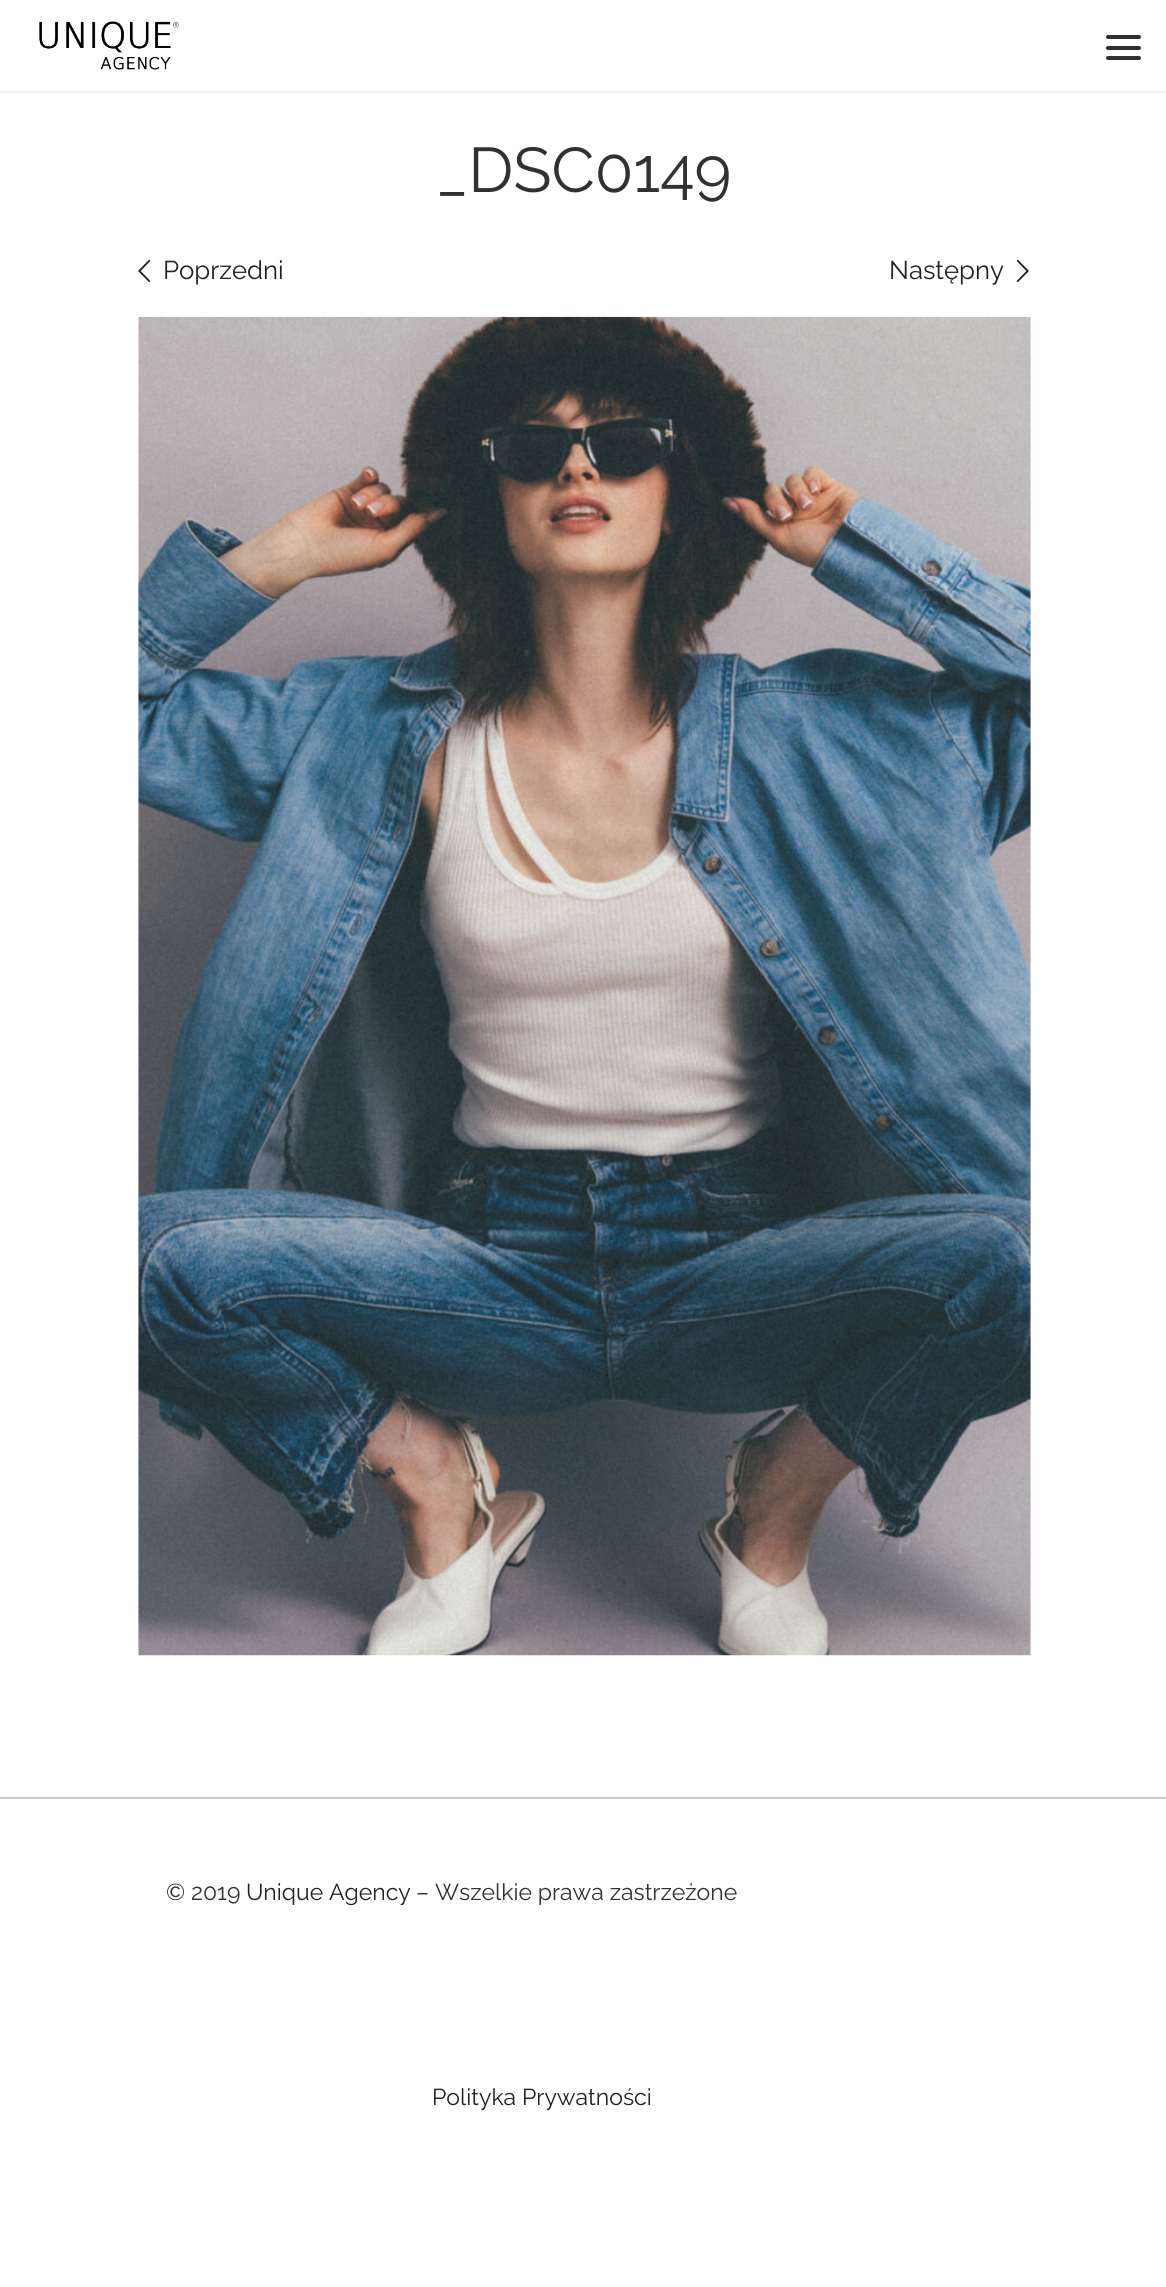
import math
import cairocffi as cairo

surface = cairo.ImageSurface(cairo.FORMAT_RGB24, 1166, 2287)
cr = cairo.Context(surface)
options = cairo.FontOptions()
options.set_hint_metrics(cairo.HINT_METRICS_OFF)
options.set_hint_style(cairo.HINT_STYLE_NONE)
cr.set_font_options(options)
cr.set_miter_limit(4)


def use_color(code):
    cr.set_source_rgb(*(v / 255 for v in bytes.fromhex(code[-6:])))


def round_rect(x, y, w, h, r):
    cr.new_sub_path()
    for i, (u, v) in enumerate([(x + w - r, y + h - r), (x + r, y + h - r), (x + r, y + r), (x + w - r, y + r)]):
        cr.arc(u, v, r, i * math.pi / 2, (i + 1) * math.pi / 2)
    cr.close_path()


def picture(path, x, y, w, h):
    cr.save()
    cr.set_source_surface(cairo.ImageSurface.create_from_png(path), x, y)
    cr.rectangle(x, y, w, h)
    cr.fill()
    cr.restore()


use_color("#ffffff")
cr.paint()
picture("img1.png", 39, 21, 140, 49)
use_color("#313131")
round_rect(1106, 35, 35, 4, 2)
cr.fill()
round_rect(1106, 46, 35, 4, 2)
cr.fill()
round_rect(1106, 56, 35, 4, 2)
cr.fill()
use_color("#f0f0f0")
cr.rectangle(0, 91, 1166, 2)
cr.fill()
cr.select_font_face("Raleway Thin")
cr.set_font_size(63)
use_color("#303133")
cr.move_to(436, 192)
cr.show_text("_DSC0149")
picture("img2.png", 138, 259, 13, 23)
cr.set_font_size(25.75)
use_color("#222222")
cr.move_to(163, 279)
cr.show_text("Poprzedni")
cr.move_to(889, 279)
cr.show_text("Następny")
picture("img3.png", 1016, 259, 13, 23)
picture("img4.png", 138, 316, 893, 1340)
use_color("#cccccc")
cr.rectangle(0, 1797, 1166, 2)
cr.fill()
cr.set_font_size(23)
use_color("#303133")
cr.move_to(166, 1900)
cr.show_text("© 2019")
use_color("#222222")
cr.move_to(246, 1900)
cr.show_text("Unique Agency")
use_color("#303133")
cr.move_to(416, 1900)
cr.show_text("– Wszelkie prawa zastrzeżone")
use_color("#222222")
cr.move_to(432, 2105)
cr.show_text("Polityka Prywatności")
surface.write_to_png("result.png")
